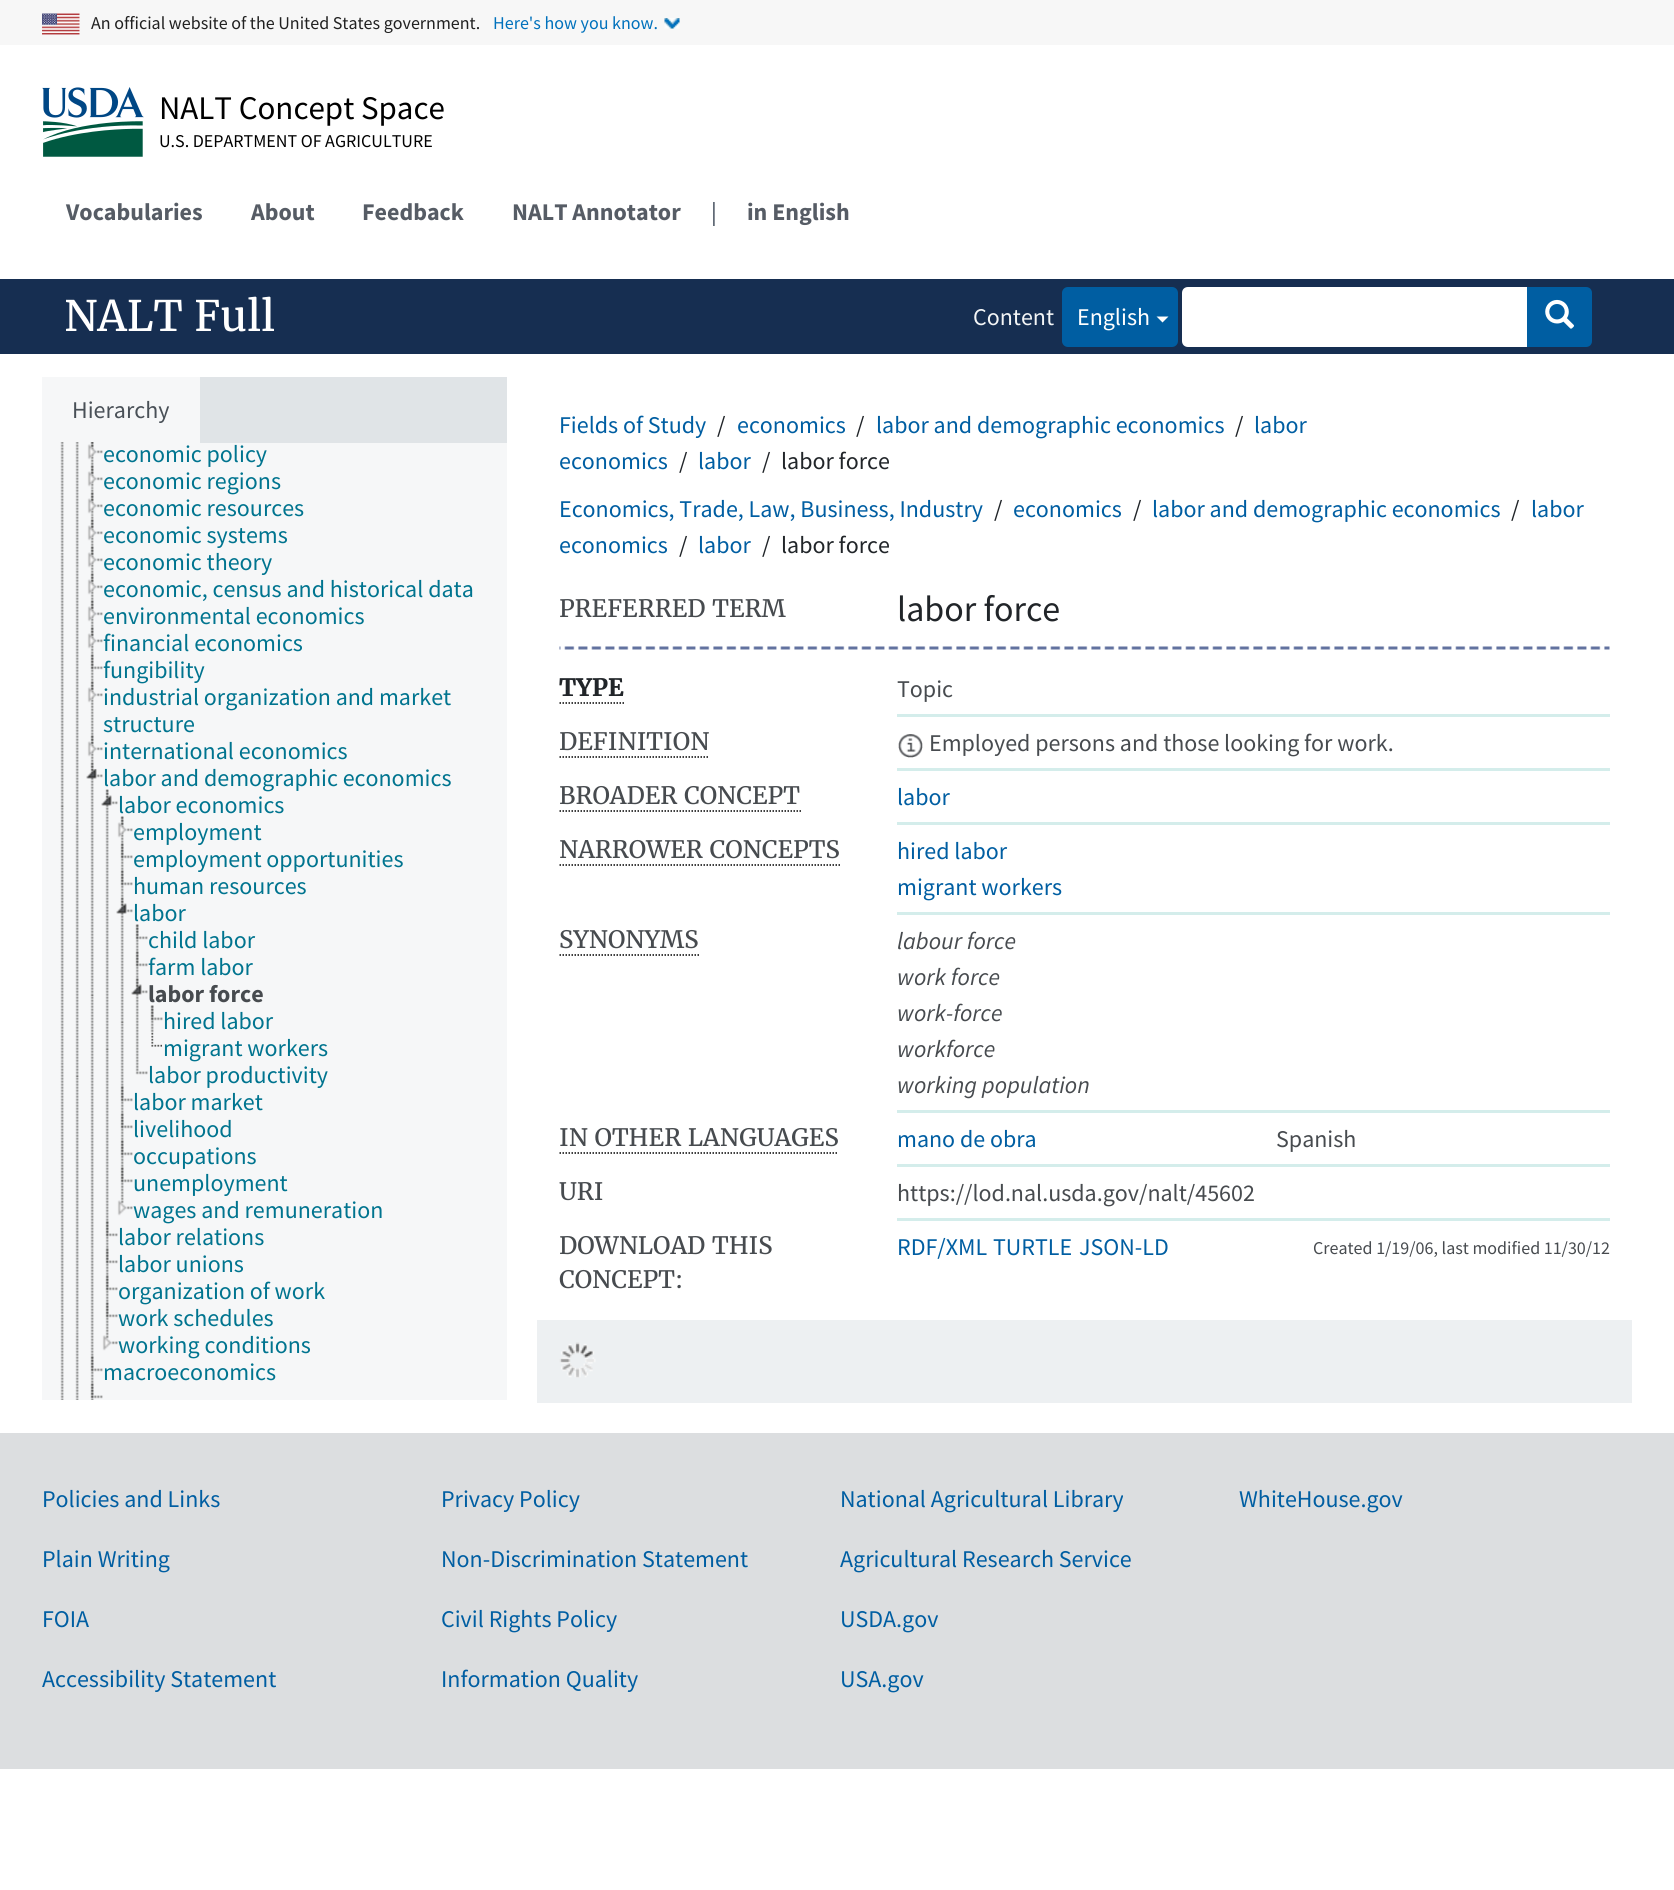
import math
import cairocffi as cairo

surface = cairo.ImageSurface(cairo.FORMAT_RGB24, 1674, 1890)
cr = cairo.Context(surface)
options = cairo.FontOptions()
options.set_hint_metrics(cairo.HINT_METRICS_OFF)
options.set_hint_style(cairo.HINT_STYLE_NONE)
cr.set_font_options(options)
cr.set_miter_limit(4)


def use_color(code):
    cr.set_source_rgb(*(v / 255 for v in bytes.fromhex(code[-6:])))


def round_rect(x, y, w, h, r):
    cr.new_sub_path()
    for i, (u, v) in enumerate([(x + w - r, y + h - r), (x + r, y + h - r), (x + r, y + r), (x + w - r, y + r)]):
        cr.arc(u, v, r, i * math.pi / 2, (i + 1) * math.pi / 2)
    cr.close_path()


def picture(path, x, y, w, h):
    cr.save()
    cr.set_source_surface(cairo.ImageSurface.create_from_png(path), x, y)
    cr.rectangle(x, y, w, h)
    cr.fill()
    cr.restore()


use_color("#ffffff")
cr.paint()
use_color("#f7f7f7")
cr.rectangle(0, 0, 1674, 45)
cr.fill()
picture("img1.png", 42, 13, 38, 22)
cr.select_font_face("Source Sans Pro")
cr.set_font_size(18)
use_color("#212121")
cr.move_to(91, 29)
cr.show_text("An official website of the United States government.")
picture("img2.png", 664, 18, 16, 11)
use_color("#0071bc")
cr.move_to(493, 29)
cr.show_text("Here's how you know.")
picture("img3.png", 42, 87, 102, 70)
cr.set_font_size(33)
use_color("#000000")
cr.move_to(159, 119)
cr.show_text("NALT Concept Space")
cr.set_font_size(18)
cr.move_to(159, 147)
cr.show_text("U.S. DEPARTMENT OF AGRICULTURE")
cr.select_font_face("Source Sans Pro", cairo.FONT_SLANT_NORMAL, cairo.FONT_WEIGHT_BOLD)
cr.set_font_size(24)
use_color("#565c65")
cr.move_to(66, 220)
cr.show_text("Vocabularies")
cr.move_to(251, 220)
cr.show_text("About")
cr.move_to(362, 220)
cr.show_text("Feedback")
cr.move_to(512, 220)
cr.show_text("NALT Annotator")
cr.select_font_face("Source Sans Pro")
use_color("#394554")
cr.move_to(711, 220)
cr.show_text("|")
cr.select_font_face("Source Sans Pro", cairo.FONT_SLANT_NORMAL, cairo.FONT_WEIGHT_BOLD)
use_color("#565c65")
cr.move_to(747, 220)
cr.show_text("in English")
use_color("#162e51")
cr.rectangle(0, 279, 1674, 75)
cr.fill()
cr.select_font_face("Merriweather")
cr.set_font_size(42)
use_color("#ffffff")
cr.move_to(64, 331)
cr.show_text("NALT Full")
cr.select_font_face("Source Sans Pro")
cr.set_font_size(24)
use_color("#f3f5f6")
cr.move_to(973, 325)
cr.show_text("Content")
use_color("#005ea2")
round_rect(1062, 287, 116, 60, 6)
cr.fill()
use_color("#ffffff")
cr.move_to(1077, 325)
cr.show_text("English")
cr.new_path()
cr.move_to(1156.5, 316.5)
cr.line_to(1168.5, 316.5)
cr.line_to(1162.5, 322.5)
cr.close_path()
cr.fill()
cr.new_path()
cr.move_to(1188, 287)
cr.line_to(1529, 287)
cr.line_to(1529, 347)
cr.line_to(1188, 347)
cr.curve_to(1184.5, 347, 1182, 344.5, 1182, 341)
cr.line_to(1182, 293)
cr.curve_to(1182, 289.5, 1184.5, 287, 1188, 287)
cr.close_path()
cr.fill()
use_color("#005ea2")
cr.new_path()
cr.move_to(1527, 287)
cr.line_to(1586, 287)
cr.curve_to(1589.5, 287, 1592, 289.5, 1592, 293)
cr.line_to(1592, 341)
cr.curve_to(1592, 344.5, 1589.5, 347, 1586, 347)
cr.line_to(1527, 347)
cr.close_path()
cr.fill()
picture("img4.png", 1545, 299, 29, 30)
use_color("#e0e4e7")
cr.rectangle(200, 377, 307, 66)
cr.fill()
use_color("#f6f7f8")
cr.rectangle(42, 377, 158, 66)
cr.fill()
use_color("#495057")
cr.move_to(72, 418)
cr.show_text("Hierarchy")
use_color("#f6f7f8")
cr.rectangle(42, 443, 465, 957)
cr.fill()
picture("img5.png", 60, 442, 4, 958)
picture("img6.png", 75, 442, 4, 958)
picture("img7.png", 90, 442, 4, 24)
picture("img8.png", 87, 442, 16, 18)
use_color("#00748f")
cr.move_to(103, 462)
cr.show_text("economic policy")
picture("img9.png", 90, 465, 4, 28)
picture("img10.png", 87, 465, 16, 22)
cr.move_to(103, 489)
cr.show_text("economic regions")
picture("img9.png", 90, 492, 4, 28)
picture("img10.png", 87, 492, 16, 22)
cr.move_to(103, 516)
cr.show_text("economic resources")
picture("img11.png", 90, 519, 4, 28)
picture("img10.png", 87, 519, 16, 22)
cr.move_to(103, 543)
cr.show_text("economic systems")
picture("img11.png", 90, 546, 4, 28)
picture("img10.png", 87, 546, 16, 22)
cr.move_to(103, 570)
cr.show_text("economic theory")
picture("img11.png", 90, 573, 4, 28)
picture("img10.png", 87, 573, 16, 22)
cr.move_to(103, 597)
cr.show_text("economic, census and historical data")
picture("img11.png", 90, 600, 4, 28)
picture("img10.png", 87, 600, 16, 22)
cr.move_to(103, 624)
cr.show_text("environmental economics")
picture("img11.png", 90, 627, 4, 28)
picture("img10.png", 87, 627, 16, 22)
cr.move_to(103, 651)
cr.show_text("financial economics")
picture("img11.png", 90, 654, 4, 28)
picture("img12.png", 90, 654, 13, 16)
cr.move_to(103, 678)
cr.show_text("fungibility")
picture("img13.png", 90, 681, 4, 55)
picture("img10.png", 87, 681, 16, 22)
cr.move_to(103, 705)
cr.show_text("industrial organization and market")
cr.move_to(103, 732)
cr.show_text("structure")
picture("img14.png", 90, 735, 4, 28)
picture("img15.png", 87, 735, 16, 22)
cr.move_to(103, 759)
cr.show_text("international economics")
picture("img16.png", 90, 762, 4, 596)
picture("img17.png", 86, 762, 17, 17)
picture("img18.png", 105, 789, 4, 434)
cr.move_to(103, 786)
cr.show_text("labor and demographic economics")
picture("img19.png", 101, 789, 17, 17)
cr.move_to(118, 813)
cr.show_text("labor economics")
picture("img20.png", 120, 816, 4, 28)
picture("img21.png", 117, 816, 16, 22)
cr.move_to(133, 840)
cr.show_text("employment")
picture("img11.png", 120, 843, 4, 28)
picture("img12.png", 120, 843, 13, 16)
cr.move_to(133, 867)
cr.show_text("employment opportunities")
picture("img11.png", 120, 870, 4, 28)
picture("img12.png", 120, 870, 13, 16)
cr.move_to(133, 894)
cr.show_text("human resources")
picture("img22.png", 120, 897, 4, 191)
picture("img23.png", 116, 897, 17, 17)
cr.move_to(133, 921)
cr.show_text("labor")
picture("img20.png", 135, 924, 4, 28)
picture("img24.png", 135, 924, 13, 16)
cr.move_to(148, 948)
cr.show_text("child labor")
picture("img11.png", 135, 951, 4, 28)
picture("img12.png", 135, 951, 13, 16)
cr.move_to(148, 975)
cr.show_text("farm labor")
picture("img25.png", 135, 978, 4, 82)
picture("img26.png", 131, 978, 17, 17)
cr.select_font_face("Source Sans Pro", cairo.FONT_SLANT_NORMAL, cairo.FONT_WEIGHT_BOLD)
use_color("#474b4f")
cr.move_to(148, 1002)
cr.show_text("labor force")
picture("img20.png", 150, 1005, 4, 28)
picture("img24.png", 150, 1005, 13, 16)
cr.select_font_face("Source Sans Pro")
use_color("#00748f")
cr.move_to(163, 1029)
cr.show_text("hired labor")
picture("img27.png", 151, 1032, 11, 15)
cr.move_to(163, 1056)
cr.show_text("migrant workers")
picture("img28.png", 135, 1059, 13, 16)
cr.move_to(148, 1083)
cr.show_text("labor productivity")
picture("img29.png", 120, 1086, 4, 28)
picture("img30.png", 120, 1086, 13, 16)
cr.move_to(133, 1110)
cr.show_text("labor market")
picture("img11.png", 120, 1113, 4, 28)
picture("img12.png", 120, 1113, 13, 16)
cr.move_to(133, 1137)
cr.show_text("livelihood")
picture("img11.png", 120, 1140, 4, 28)
picture("img12.png", 120, 1140, 13, 16)
cr.move_to(133, 1164)
cr.show_text("occupations")
picture("img11.png", 120, 1167, 4, 28)
picture("img12.png", 120, 1167, 13, 16)
cr.move_to(133, 1191)
cr.show_text("unemployment")
picture("img31.png", 117, 1194, 16, 22)
cr.move_to(133, 1218)
cr.show_text("wages and remuneration")
picture("img29.png", 105, 1221, 4, 28)
picture("img30.png", 105, 1221, 13, 16)
cr.move_to(118, 1245)
cr.show_text("labor relations")
picture("img11.png", 105, 1248, 4, 28)
picture("img32.png", 105, 1248, 13, 16)
cr.move_to(118, 1272)
cr.show_text("labor unions")
picture("img11.png", 105, 1275, 4, 28)
picture("img32.png", 105, 1275, 13, 16)
cr.move_to(118, 1299)
cr.show_text("organization of work")
picture("img11.png", 105, 1302, 4, 28)
picture("img12.png", 105, 1302, 13, 16)
cr.move_to(118, 1326)
cr.show_text("work schedules")
picture("img31.png", 102, 1329, 16, 22)
cr.move_to(118, 1353)
cr.show_text("working conditions")
picture("img29.png", 90, 1356, 4, 28)
picture("img30.png", 90, 1356, 13, 16)
cr.move_to(103, 1380)
cr.show_text("macroeconomics")
picture("img33.png", 90, 1383, 4, 17)
picture("img12.png", 90, 1383, 13, 16)
use_color("#005ea2")
cr.move_to(559, 433)
cr.show_text("Fields of Study")
use_color("#212529")
cr.move_to(717, 433)
cr.show_text("/")
use_color("#005ea2")
cr.move_to(737, 433)
cr.show_text("economics")
use_color("#212529")
cr.move_to(856, 433)
cr.show_text("/")
use_color("#005ea2")
cr.move_to(876, 433)
cr.show_text("labor and demographic economics")
use_color("#212529")
cr.move_to(1235, 433)
cr.show_text("/")
use_color("#005ea2")
cr.move_to(1254, 433)
cr.show_text("labor")
cr.move_to(559, 469)
cr.show_text("economics")
use_color("#212529")
cr.move_to(679, 469)
cr.show_text("/")
use_color("#005ea2")
cr.move_to(698, 469)
cr.show_text("labor")
use_color("#212529")
cr.move_to(762, 469)
cr.show_text("/")
cr.move_to(781, 469)
cr.show_text("labor force")
use_color("#005ea2")
cr.move_to(559, 517)
cr.show_text("Economics, Trade, Law, Business, Industry")
use_color("#212529")
cr.move_to(994, 517)
cr.show_text("/")
use_color("#005ea2")
cr.move_to(1013, 517)
cr.show_text("economics")
use_color("#212529")
cr.move_to(1133, 517)
cr.show_text("/")
use_color("#005ea2")
cr.move_to(1152, 517)
cr.show_text("labor and demographic economics")
use_color("#212529")
cr.move_to(1511, 517)
cr.show_text("/")
use_color("#005ea2")
cr.move_to(1531, 517)
cr.show_text("labor")
cr.move_to(559, 553)
cr.show_text("economics")
use_color("#212529")
cr.move_to(679, 553)
cr.show_text("/")
use_color("#005ea2")
cr.move_to(698, 553)
cr.show_text("labor")
use_color("#212529")
cr.move_to(762, 553)
cr.show_text("/")
cr.move_to(781, 553)
cr.show_text("labor force")
cr.select_font_face("Merriweather")
use_color("#474b4f")
cr.move_to(559, 617)
cr.show_text("PREFERRED TERM")
cr.select_font_face("Source Sans Pro")
cr.set_font_size(36)
use_color("#212529")
cr.move_to(897, 621)
cr.show_text("labor force")
picture("img34.png", 559, 646, 1051, 4)
cr.select_font_face("Merriweather", cairo.FONT_SLANT_NORMAL, cairo.FONT_WEIGHT_BOLD)
cr.set_font_size(24)
cr.move_to(559, 696)
cr.show_text("TYPE")
cr.new_path()
cr.move_to(559.5, 703)
cr.line_to(624, 703)
use_color("#000000")
cr.set_line_width(1.5)
cr.set_dash([1.5, 1.5])
cr.stroke()
use_color("#d4edeb")
cr.rectangle(897, 714, 713, 3)
cr.fill()
cr.select_font_face("Source Sans Pro")
use_color("#474b4f")
cr.move_to(897, 697)
cr.show_text("Topic")
cr.select_font_face("Merriweather")
cr.move_to(559, 750)
cr.show_text("DEFINITION")
cr.new_path()
cr.move_to(559.5, 757)
cr.line_to(709.5, 757)
use_color("#000000")
cr.stroke()
use_color("#d4edeb")
cr.rectangle(897, 768, 713, 3)
cr.fill()
picture("img35.png", 898, 734, 25, 24)
cr.select_font_face("Source Sans Pro")
use_color("#474b4f")
cr.move_to(929, 751)
cr.show_text("Employed persons and those looking for work.")
cr.select_font_face("Merriweather")
cr.move_to(559, 804)
cr.show_text("BROADER CONCEPT")
cr.new_path()
cr.move_to(559.5, 811)
cr.line_to(801, 811)
use_color("#000000")
cr.stroke()
use_color("#d4edeb")
cr.rectangle(897, 822, 713, 3)
cr.fill()
cr.select_font_face("Source Sans Pro")
use_color("#005ea2")
cr.move_to(897, 805)
cr.show_text("labor")
cr.select_font_face("Merriweather")
use_color("#474b4f")
cr.move_to(559, 858)
cr.show_text("NARROWER CONCEPTS")
cr.new_path()
cr.move_to(559.5, 865)
cr.line_to(840, 865)
use_color("#000000")
cr.stroke()
use_color("#d4edeb")
cr.rectangle(897, 912, 713, 3)
cr.fill()
cr.select_font_face("Source Sans Pro")
use_color("#005ea2")
cr.move_to(897, 859)
cr.show_text("hired labor")
cr.move_to(897, 895)
cr.show_text("migrant workers")
cr.select_font_face("Merriweather")
use_color("#474b4f")
cr.move_to(559, 948)
cr.show_text("SYNONYMS")
cr.new_path()
cr.move_to(559.5, 955)
cr.line_to(699, 955)
use_color("#000000")
cr.stroke()
use_color("#d4edeb")
cr.rectangle(897, 1110, 713, 3)
cr.fill()
cr.select_font_face("Source Sans Pro", cairo.FONT_SLANT_ITALIC)
use_color("#474b4f")
cr.move_to(897, 949)
cr.show_text("labour force")
cr.move_to(897, 985)
cr.show_text("work force")
cr.move_to(897, 1021)
cr.show_text("work-force")
cr.move_to(897, 1057)
cr.show_text("workforce")
cr.move_to(897, 1093)
cr.show_text("working population")
cr.select_font_face("Merriweather")
cr.move_to(559, 1146)
cr.show_text("IN OTHER LANGUAGES")
cr.new_path()
cr.move_to(559.5, 1153)
cr.line_to(838.5, 1153)
use_color("#000000")
cr.stroke()
use_color("#d4edeb")
cr.rectangle(897, 1164, 713, 3)
cr.fill()
cr.select_font_face("Source Sans Pro")
use_color("#005ea2")
cr.move_to(897, 1147)
cr.show_text("mano de obra")
use_color("#474b4f")
cr.move_to(1276, 1147)
cr.show_text("Spanish")
cr.select_font_face("Merriweather")
cr.move_to(559, 1200)
cr.show_text("URI")
use_color("#d4edeb")
cr.rectangle(897, 1218, 713, 3)
cr.fill()
cr.select_font_face("Source Sans Pro")
use_color("#474b4f")
cr.move_to(897, 1201)
cr.show_text("https://lod.nal.usda.gov/nalt/45602")
cr.select_font_face("Merriweather")
cr.move_to(559, 1254)
cr.show_text("DOWNLOAD THIS")
cr.move_to(559, 1288)
cr.show_text("CONCEPT:")
cr.select_font_face("Source Sans Pro")
use_color("#005ea2")
cr.move_to(897, 1255)
cr.show_text("RDF/XML")
cr.move_to(993, 1255)
cr.show_text("TURTLE")
cr.move_to(1079, 1255)
cr.show_text("JSON-LD")
cr.set_font_size(18)
use_color("#474b4f")
cr.move_to(1313, 1254)
cr.show_text("Created 1/19/06, last modified 11/30/12")
use_color("#edf0f2")
cr.rectangle(537, 1320, 1095, 83)
cr.fill()
picture("img36.png", 559, 1342, 37, 36)
use_color("#dcdee0")
cr.rectangle(0, 1433, 1674, 336)
cr.fill()
cr.set_font_size(24)
use_color("#005ea2")
cr.move_to(42, 1507)
cr.show_text("Policies and Links")
cr.move_to(441, 1507)
cr.show_text("Privacy Policy")
cr.move_to(840, 1507)
cr.show_text("National Agricultural Library")
cr.move_to(1239, 1507)
cr.show_text("WhiteHouse.gov")
cr.move_to(42, 1567)
cr.show_text("Plain Writing")
cr.move_to(441, 1567)
cr.show_text("Non-Discrimination Statement")
cr.move_to(840, 1567)
cr.show_text("Agricultural Research Service")
cr.move_to(42, 1627)
cr.show_text("FOIA")
cr.move_to(441, 1627)
cr.show_text("Civil Rights Policy")
cr.move_to(840, 1627)
cr.show_text("USDA.gov")
cr.move_to(42, 1687)
cr.show_text("Accessibility Statement")
cr.move_to(441, 1687)
cr.show_text("Information Quality")
cr.move_to(840, 1687)
cr.show_text("USA.gov")
surface.write_to_png("result.png")
